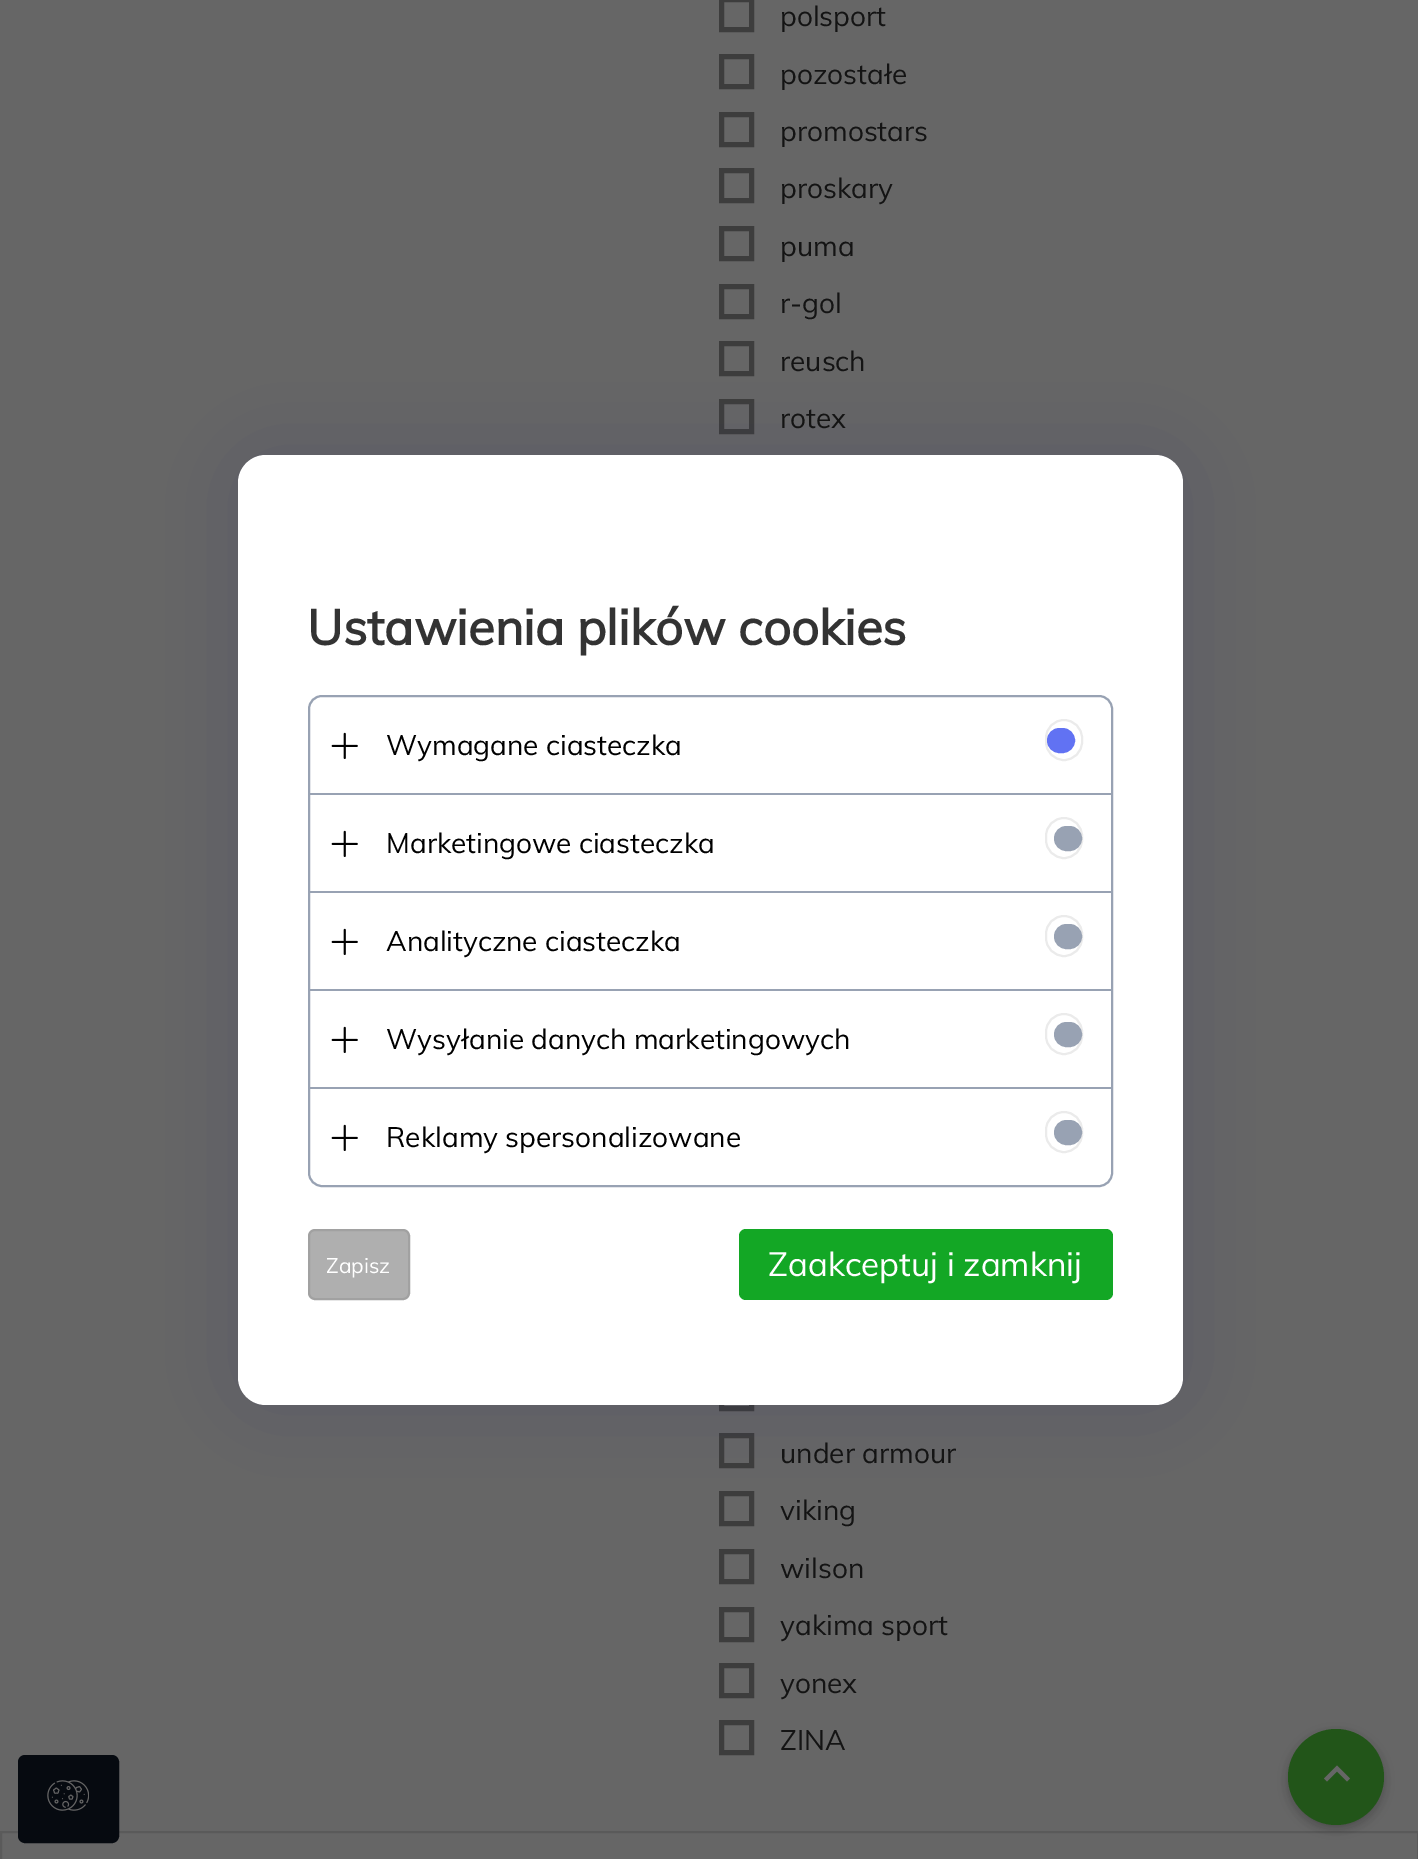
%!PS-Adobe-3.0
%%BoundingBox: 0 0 1418 1859
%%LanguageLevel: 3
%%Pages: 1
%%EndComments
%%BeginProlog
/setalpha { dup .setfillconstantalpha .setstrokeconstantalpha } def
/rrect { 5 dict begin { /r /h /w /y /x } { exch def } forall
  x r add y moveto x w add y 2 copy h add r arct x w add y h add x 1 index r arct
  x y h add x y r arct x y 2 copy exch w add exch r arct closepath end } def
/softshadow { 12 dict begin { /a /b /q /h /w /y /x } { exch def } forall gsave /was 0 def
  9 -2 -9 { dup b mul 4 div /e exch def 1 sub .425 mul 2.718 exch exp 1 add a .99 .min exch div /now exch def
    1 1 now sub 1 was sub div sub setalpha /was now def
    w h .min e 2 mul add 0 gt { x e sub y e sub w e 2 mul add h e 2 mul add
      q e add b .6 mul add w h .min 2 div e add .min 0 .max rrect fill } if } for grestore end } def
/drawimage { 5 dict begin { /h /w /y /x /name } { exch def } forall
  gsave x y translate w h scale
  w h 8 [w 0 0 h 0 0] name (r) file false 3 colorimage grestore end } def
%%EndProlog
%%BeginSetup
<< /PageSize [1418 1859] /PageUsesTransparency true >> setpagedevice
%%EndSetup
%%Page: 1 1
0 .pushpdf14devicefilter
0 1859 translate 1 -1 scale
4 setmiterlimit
0.4 setgray
0 0 1418 1859 rectfill
0.239 setgray
5 setlinewidth
721.5 -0.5 30 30 rectstroke
721.5 56.5 30 30 rectstroke
721.5 114.5 30 30 rectstroke
721.5 170.5 30 30 rectstroke
721.5 228.5 30 30 rectstroke
721.5 286.5 30 30 rectstroke
721.5 343.5 30 30 rectstroke
721.5 401.5 30 30 rectstroke
721.5 1378.5 30 30 rectstroke
721.5 1435.5 30 30 rectstroke
721.5 1493.5 30 30 rectstroke
721.5 1551.5 30 30 rectstroke
721.5 1609.5 30 30 rectstroke
721.5 1665.5 30 30 rectstroke
721.5 1722.5 30 30 rectstroke
0.353 setgray
2 setlinewidth
1 1832 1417 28 rectstroke
0.129 0.102 0.412 setrgbcolor
238 455 945 950 28 42 0.15 softshadow
1 setgray
238 455 945 950 28 rrect fill
0.596 0.635 0.702 setrgbcolor
309 696 803 490 13 rrect stroke
(images/1.raw) 331 732 27 27 drawimage
0.922 setgray
1046 720 36 40 18 rrect stroke
0.38 0.447 0.953 setrgbcolor
1048 729 26 23 11.5 rrect gsave fill grestore
stroke
0.596 0.635 0.702 setrgbcolor
310 793 801 2 rectfill
(images/1.raw) 331 830 27 27 drawimage
0.922 setgray
1046 818 36 40 18 rrect stroke
0.596 0.635 0.702 setrgbcolor
1055 827 26 23 11.5 rrect gsave fill grestore
stroke
310 891 801 2 rectfill
(images/1.raw) 331 928 27 27 drawimage
0.922 setgray
1046 916 36 40 18 rrect stroke
0.596 0.635 0.702 setrgbcolor
1055 925 26 23 11.5 rrect gsave fill grestore
stroke
310 989 801 2 rectfill
(images/1.raw) 331 1026 27 27 drawimage
0.922 setgray
1046 1014 36 40 18 rrect stroke
0.596 0.635 0.702 setrgbcolor
1055 1023 26 23 11.5 rrect gsave fill grestore
stroke
310 1087 801 2 rectfill
(images/1.raw) 331 1124 27 27 drawimage
0.922 setgray
1046 1112 36 40 18 rrect stroke
0.596 0.635 0.702 setrgbcolor
1055 1121 26 23 11.5 rrect gsave fill grestore
stroke
0.686 setgray
309 1230 100 69 6 rrect gsave fill grestore
0.631 setgray
stroke
0.075 0.655 0.145 setrgbcolor
739 1229 374 71 7 rrect fill
0.024 0.039 0.063 setrgbcolor
19 1756 99 86 6 rrect gsave fill grestore
stroke
(images/2.raw) 47 1780 42 31 drawimage
0 setgray
1288 1733 96 96 48 9 0.12 softshadow
1288 1733 96 96 48 4.5 0.16 softshadow
0.133 0.333 0.098 setrgbcolor
newpath 1336 1777 48 0 360 arc closepath fill
0.4 setgray
newpath 1327 1781.5 moveto 1337 1771.5 lineto 1347 1781.5 lineto 1350 1778.5 lineto 1337 1765.5 lineto 1324 1778.5 lineto closepath fill
/Muli-Regular [28 0 0 -28 0 0] selectfont
0.078 setgray
780 26 moveto (polsport) show
780 84 moveto (pozostałe) show
780 141 moveto (promostars) show
780 198 moveto (proskary) show
780 256 moveto (puma) show
780 313 moveto (r-gol) show
780 371 moveto (reusch) show
780 428 moveto (rotex) show
780 1463 moveto (under armour) show
780 1520 moveto (viking) show
780 1578 moveto (wilson) show
780 1635 moveto (yakima sport) show
780 1693 moveto (yonex) show
780 1750 moveto (ZINA) show
/Muli-Bold [49 0 0 -49 0 0] selectfont
0.2 setgray
307 645 moveto (Ustawienia plików cookies) show
/Muli-Regular [28 0 0 -28 0 0] selectfont
0 setgray
386 755 moveto (Wymagane ciasteczka) show
386 853 moveto (Marketingowe ciasteczka) show
386 951 moveto (Analityczne ciasteczka) show
386 1049 moveto (Wysyłanie danych marketingowych) show
386 1147 moveto (Reklamy spersonalizowane) show
/Muli-Regular [21 0 0 -21 0 0] selectfont
1 setgray
326 1273 moveto (Zapisz) show
/Muli-Regular [33.25 0 0 -33.25 0 0] selectfont
768 1276 moveto (Zaakceptuj i zamknij) show
.poppdf14devicefilter showpage
%%EOF
